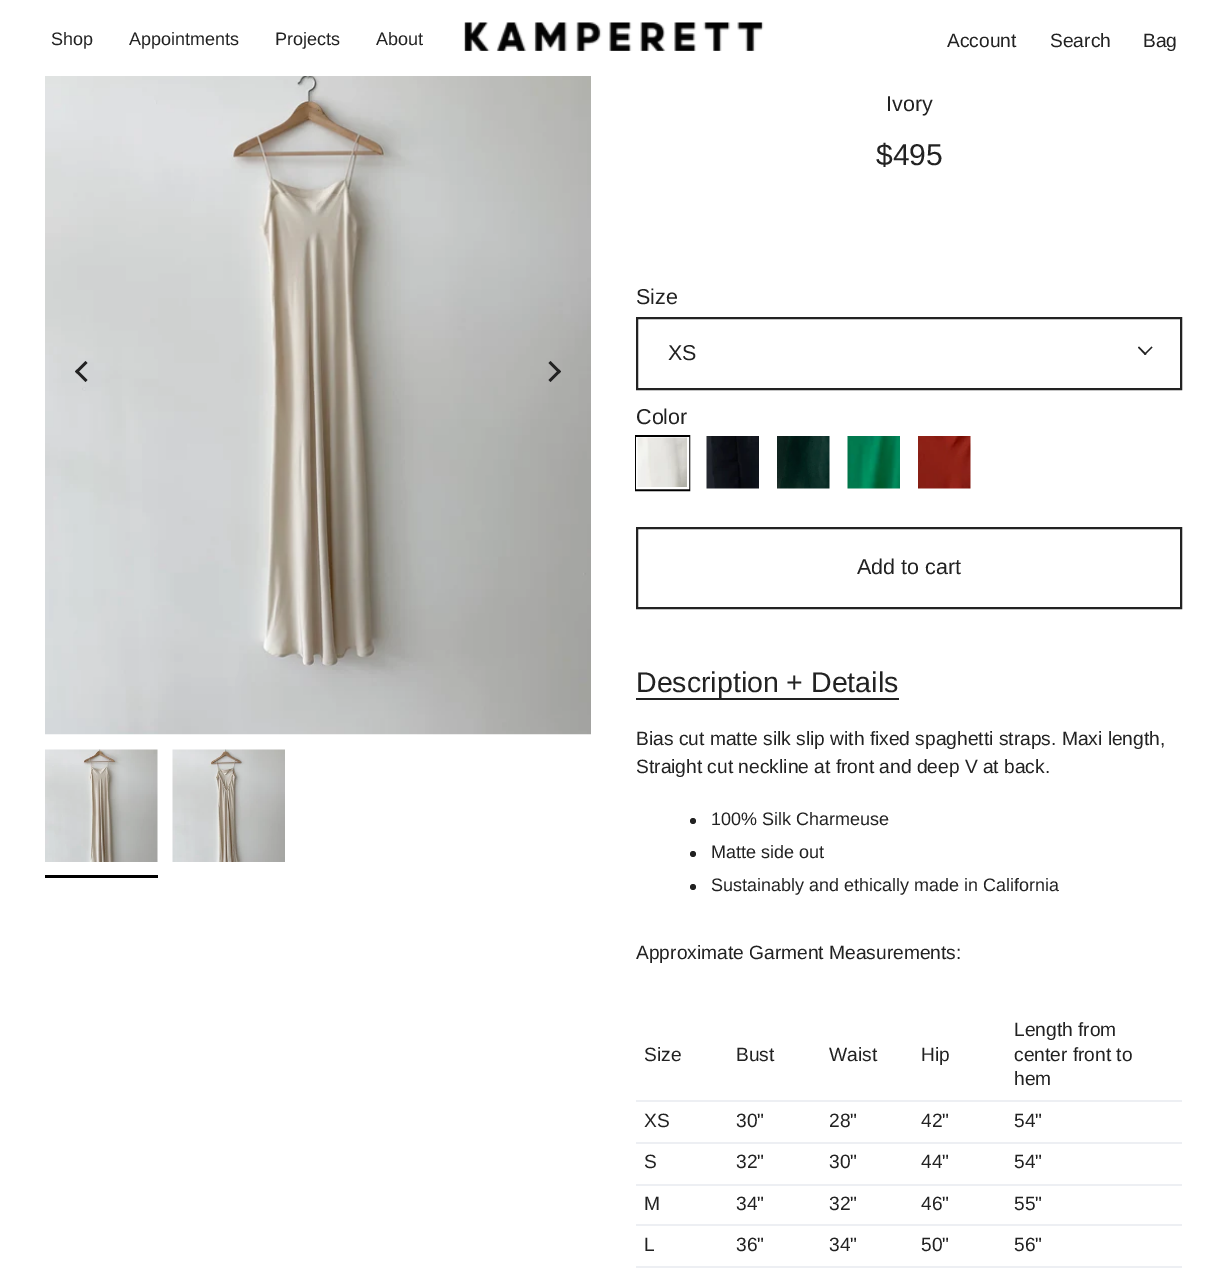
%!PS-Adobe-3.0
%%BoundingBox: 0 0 1226 1280
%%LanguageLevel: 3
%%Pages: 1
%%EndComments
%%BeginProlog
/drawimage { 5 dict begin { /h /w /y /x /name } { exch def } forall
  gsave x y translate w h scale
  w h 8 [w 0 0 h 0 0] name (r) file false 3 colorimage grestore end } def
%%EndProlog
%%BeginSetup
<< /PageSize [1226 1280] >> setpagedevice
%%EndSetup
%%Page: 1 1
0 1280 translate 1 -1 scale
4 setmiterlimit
1 setgray
0 0 1226 1280 rectfill
(images/1.raw) 464 22 300 29 drawimage
(images/2.raw) 45 76 546 659 drawimage
0.133 setgray
newpath 77 369.5 moveto 87.5 380 lineto 85.5 382 lineto 75 371.5 lineto closepath fill
newpath 85.5 361 moveto 87.5 363 lineto 77 373.5 lineto 75 371.5 lineto closepath fill
newpath 559 373.5 moveto 548.5 363 lineto 550.5 361 lineto 561 371.5 lineto closepath fill
newpath 550.5 382 moveto 548.5 380 lineto 559 369.5 lineto 561 371.5 lineto closepath fill
(images/3.raw) 45 749 113 113 drawimage
0 setgray
45 875 113 3 rectfill
(images/4.raw) 172 749 113 113 drawimage
0.133 setgray
2 setlinewidth
637 318 544 71 rectstroke
newpath 1144 354 moveto 1151.5 346.5 lineto 1152.5 347.5 lineto 1145 355 lineto closepath fill
newpath 1138 347.5 moveto 1139 346.5 lineto 1146.5 354 lineto 1145 355 lineto closepath fill
0 setgray
636 436 53 54 rectstroke
1 setgray
637 438 51 50 rectstroke
(images/5.raw) 637 437 50 50 drawimage
(images/6.raw) 706 436 53 53 drawimage
(images/7.raw) 777 436 53 53 drawimage
(images/8.raw) 847 436 53 53 drawimage
(images/9.raw) 918 436 53 53 drawimage
0.133 setgray
637 528 544 80 rectstroke
636 698 263 2 rectfill
newpath 693 821 3 0 360 arc closepath fill
newpath 693 854 3 0 360 arc closepath fill
newpath 693 887 3 0 360 arc closepath fill
0.929 0.937 0.953 setrgbcolor
636 1100 546 2 rectfill
636 1142 546 2 rectfill
636 1184 546 2 rectfill
636 1224 546 2 rectfill
636 1266 546 2 rectfill
/LiberationSans-Regular [18 0 0 -18 0 0] selectfont
0.133 setgray
51 45 moveto (Shop) show
129 45 moveto (Appointments) show
275 45 moveto (Projects) show
376 45 moveto (About) show
/LiberationSans-Regular [19.2 0 0 -19.2 0 0] selectfont
947 47 moveto (Account) show
1050 47 moveto (Search) show
1143 47 moveto (Bag) show
/LiberationSans-Regular [21.5 0 0 -21.5 0 0] selectfont
886 111 moveto (Ivory) show
/LiberationSans-Regular [30 0 0 -30 0 0] selectfont
876 165 moveto ($495) show
/LiberationSans-Regular [21.5 0 0 -21.5 0 0] selectfont
636 304 moveto (Size) show
668 360 moveto (XS) show
636 424 moveto (Color) show
857 574 moveto (Add to cart) show
/LiberationSans-Regular [28.5 0 0 -28.5 0 0] selectfont
636 692 moveto (Description + Details) show
/LiberationSans-Regular [19.2 0 0 -19.2 0 0] selectfont
636 745 moveto (Bias cut matte silk slip with fixed spaghetti straps. Maxi length,) show
636 773 moveto (Straight cut neckline at front and deep V at back.) show
/LiberationSans-Regular [18 0 0 -18 0 0] selectfont
711 825 moveto (100% Silk Charmeuse) show
711 858 moveto (Matte side out) show
711 891 moveto (Sustainably and ethically made in California) show
/LiberationSans-Regular [19.2 0 0 -19.2 0 0] selectfont
636 959 moveto (Approximate Garment Measurements:) show
644 1061 moveto (Size) show
736 1061 moveto (Bust) show
829 1061 moveto (Waist) show
921 1061 moveto (Hip) show
1014 1036 moveto (Length from) show
1014 1061 moveto (center front to) show
1014 1085 moveto (hem) show
644 1127 moveto (XS) show
736 1127 moveto (30") show
829 1127 moveto (28") show
921 1127 moveto (42") show
1014 1127 moveto (54") show
644 1168 moveto (S) show
736 1168 moveto (32") show
829 1168 moveto (30") show
921 1168 moveto (44") show
1014 1168 moveto (54") show
644 1210 moveto (M) show
736 1210 moveto (34") show
829 1210 moveto (32") show
921 1210 moveto (46") show
1014 1210 moveto (55") show
644 1251 moveto (L) show
736 1251 moveto (36") show
829 1251 moveto (34") show
921 1251 moveto (50") show
1014 1251 moveto (56") show
showpage
%%EOF
